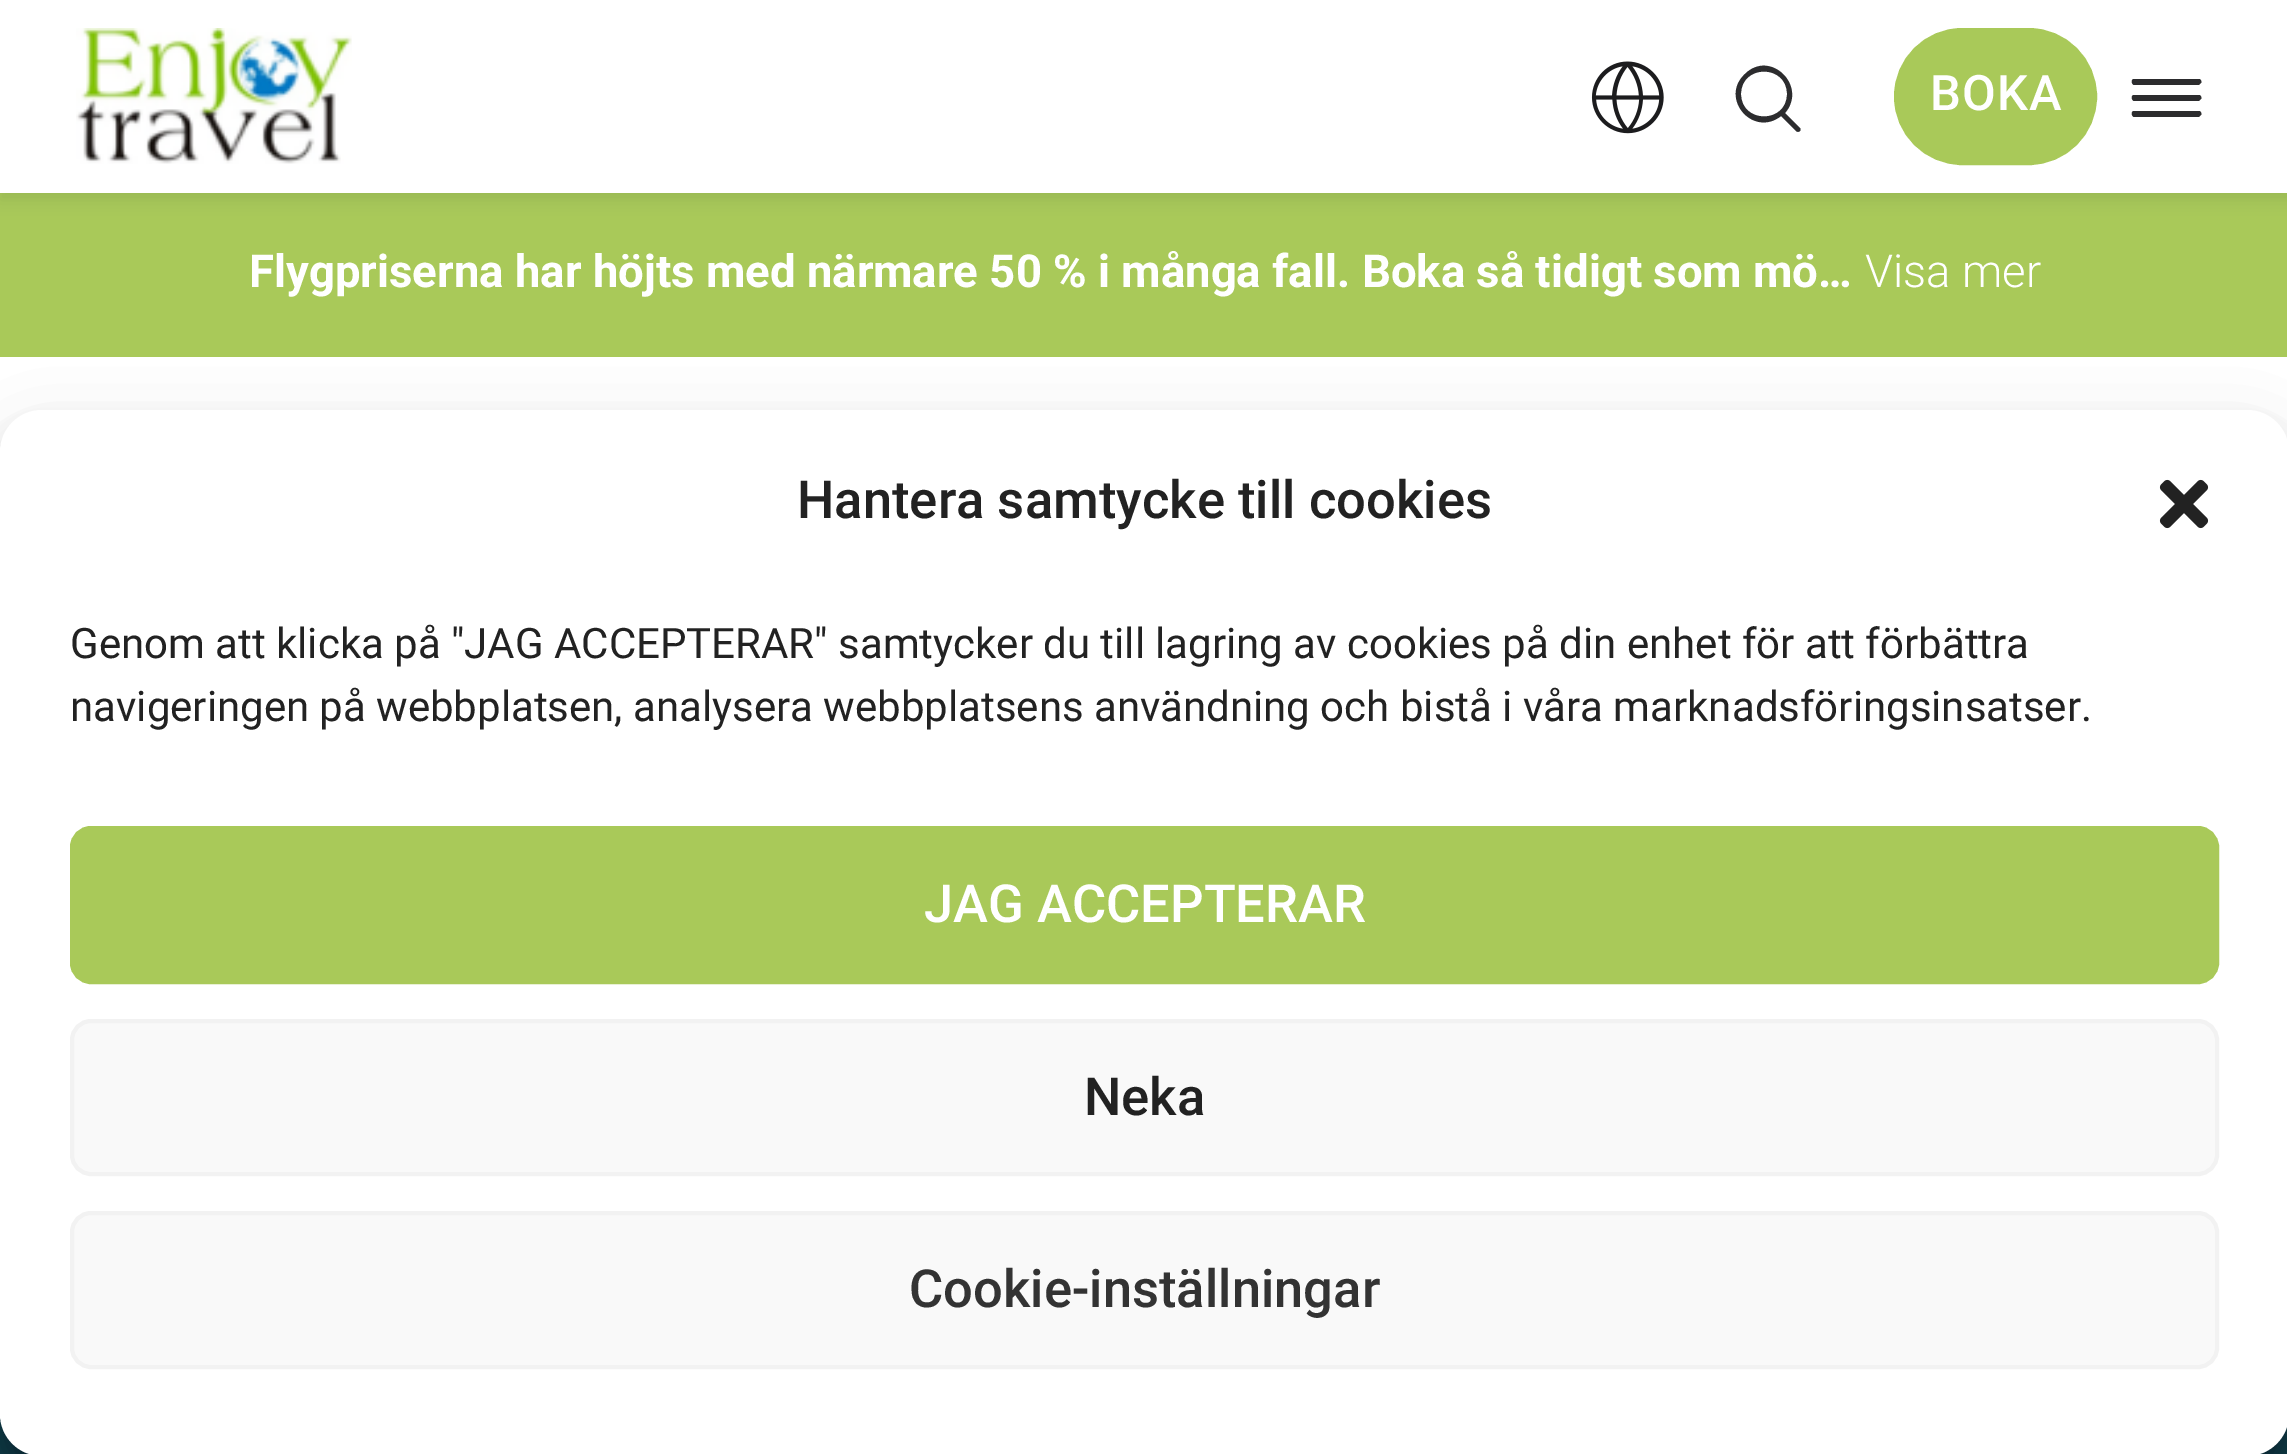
%!PS-Adobe-3.0
%%BoundingBox: 0 0 2287 1454
%%LanguageLevel: 3
%%Pages: 1
%%EndComments
%%BeginProlog
/setalpha { dup .setfillconstantalpha .setstrokeconstantalpha } def
/rrect { 5 dict begin { /r /h /w /y /x } { exch def } forall
  x r add y moveto x w add y 2 copy h add r arct x w add y h add x 1 index r arct
  x y h add x y r arct x y 2 copy exch w add exch r arct closepath end } def
/softshadow { 12 dict begin { /a /b /q /h /w /y /x } { exch def } forall gsave /was 0 def
  9 -2 -9 { dup b mul 4 div /e exch def 1 sub .425 mul 2.718 exch exp 1 add a .99 .min exch div /now exch def
    1 1 now sub 1 was sub div sub setalpha /was now def
    w h .min e 2 mul add 0 gt { x e sub y e sub w e 2 mul add h e 2 mul add
      q e add b .6 mul add w h .min 2 div e add .min 0 .max rrect fill } if } for grestore end } def
/drawimage { 5 dict begin { /h /w /y /x /name } { exch def } forall
  gsave x y translate w h scale
  w h 8 [w 0 0 h 0 0] name (r) file false 3 colorimage grestore end } def
%%EndProlog
%%BeginSetup
<< /PageSize [2287 1454] /PageUsesTransparency true >> setpagedevice
%%EndSetup
%%Page: 1 1
0 .pushpdf14devicefilter
0 1454 translate 1 -1 scale
4 setmiterlimit
1 setgray
0 0 2287 1454 rectfill
0.663 0.788 0.349 setrgbcolor
0 193 2287 164 rectfill
0 setgray
0 7 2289 193 0 7 0.07 softshadow
1 setgray
0 0 2287 193 rectfill
(images/1.raw) 76 28 276 136 drawimage
(images/2.raw) 1591 61 73 73 drawimage
0.173 0.173 0.18 setrgbcolor
newpath 1781 116 moveto 1753 138 1719 98 1745 74 curveto 1770 49 1808 86 1785 113 curveto 1800 128 lineto 1802 131 1798 133 1796 131 curveto closepath 1787 94 moveto 1787 124 1741 124 1741 94 curveto 1741 64 1787 64 1787 94 curveto eofill
0.663 0.788 0.349 setrgbcolor
1897.5 31.5 196 130 65 rrect gsave fill grestore
7 setlinewidth
stroke
0.173 0.173 0.18 setrgbcolor
newpath 2134 79 moveto 2131 79 2131 84 2134 85 curveto 2199 85 lineto 2201 83 lineto 2202 82 2201 79 2199 79 curveto closepath 2134 95 moveto 2131 95 2131 100 2134 101 curveto 2199 101 lineto 2201 99 lineto 2202 98 2201 95 2199 95 curveto closepath 2134 111 moveto 2131 111 2131 116 2134 117 curveto 2199 117 lineto 2201 115 lineto 2202 114 2201 111 2199 111 curveto closepath fill
0.059 0.235 0.302 setrgbcolor
0 1414 2287 40 rectfill
0 setgray
0 431 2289 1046 42 10.5 0.23 softshadow
0 445 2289 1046 42 35 0.19 softshadow
1 setgray
0 410 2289 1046 42 rrect fill
(images/3.raw) 2159 479 50 50 drawimage
0.663 0.788 0.349 setrgbcolor
72 828 2145 154 19 rrect gsave fill grestore
4 setlinewidth
stroke
0.976 setgray
72 1021 2145 153 19 rrect gsave fill grestore
0.949 setgray
stroke
0.976 setgray
72 1213 2145 154 19 rrect gsave fill grestore
0.949 setgray
stroke
/Roboto-Medium [49 0 0 -49 0 0] selectfont
1 setgray
1930 110 moveto 1 0 (BOKA) ashow
/Roboto-Bold [45.5 0 0 -45.5 0 0] selectfont
249 287 moveto (Flygpriserna har höjts med närmare 50 % i många fall. Boka så tidigt som mö…) show
/Roboto-Light [45.5 0 0 -45.5 0 0] selectfont
1865 287 moveto (Visa mer) show
/Roboto-Medium [52.5 0 0 -52.5 0 0] selectfont
0.133 setgray
797 518 moveto (Hantera samtycke till cookies) show
/Roboto-Regular [42 0 0 -42 0 0] selectfont
70 658 moveto (Genom att klicka på "JAG ACCEPTERAR" samtycker du till lagring av cookies på din enhet för att förbättra) show
70 721 moveto (navigeringen på webbplatsen, analysera webbplatsens användning och bistå i våra marknadsföringsinsatser.) show
/Roboto-Medium [52.5 0 0 -52.5 0 0] selectfont
1 setgray
924 922 moveto (JAG ACCEPTERAR) show
0.133 setgray
1084 1115 moveto (Neka) show
0.2 setgray
909 1307 moveto (Cookie-inställningar) show
.poppdf14devicefilter showpage
%%EOF
